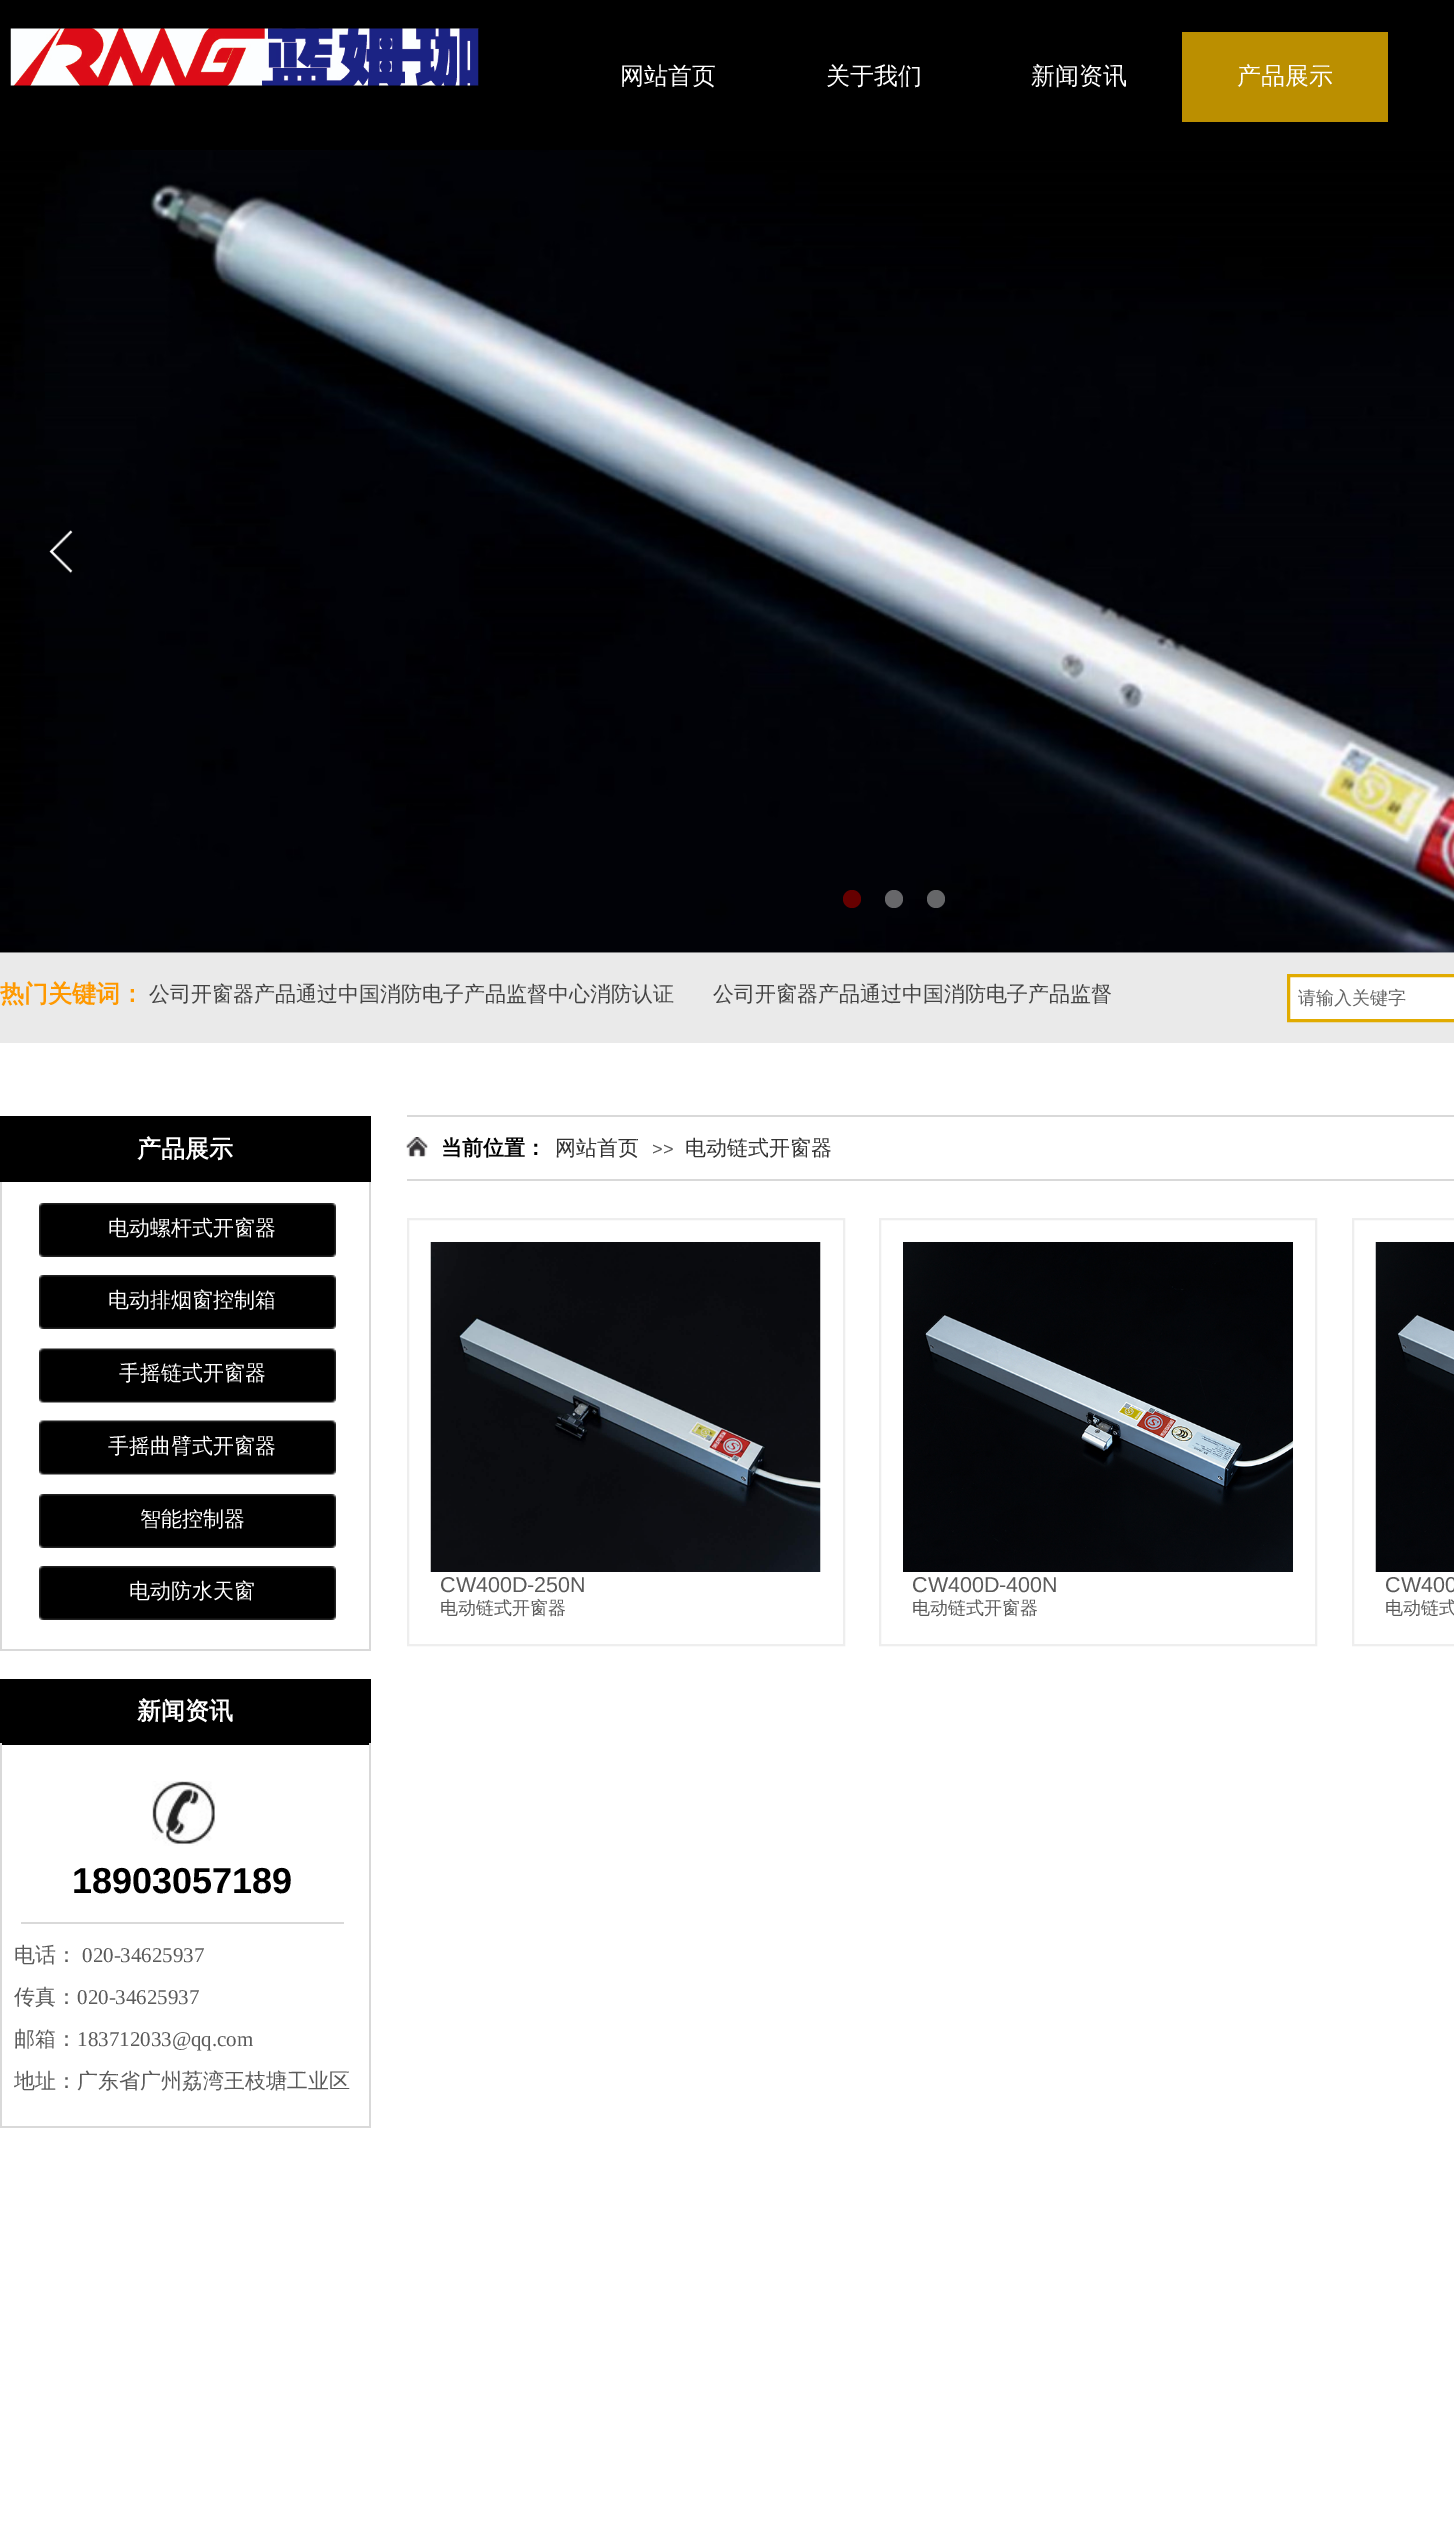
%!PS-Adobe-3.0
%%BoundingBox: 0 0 1454 2542
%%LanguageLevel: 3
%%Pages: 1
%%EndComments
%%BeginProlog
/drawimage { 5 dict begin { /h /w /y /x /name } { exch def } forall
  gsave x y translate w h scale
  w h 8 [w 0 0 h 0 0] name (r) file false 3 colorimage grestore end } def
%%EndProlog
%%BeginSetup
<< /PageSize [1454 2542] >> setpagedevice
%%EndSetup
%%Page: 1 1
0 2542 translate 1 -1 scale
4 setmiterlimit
1 setgray
0 0 1454 2542 rectfill
0 setgray
0 0 1454 150 rectfill
(images/1.raw) 10 28 469 58 drawimage
0.733 0.561 0 setrgbcolor
1182 32 206 90 rectfill
(images/2.raw) 0 150 1454 803 drawimage
(images/3.raw) 49 530 24 44 drawimage
0.4 0 0 setrgbcolor
newpath 852 899 9 0 360 arc closepath fill
0.404 0.404 0.416 setrgbcolor
newpath 894 899 9 0 360 arc closepath fill
0.4 0.404 0.412 setrgbcolor
newpath 936 899 9 0 360 arc closepath fill
0.918 setgray
0 953 1454 90 rectfill
1 setgray
newpath 1288.5 975.5 moveto 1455.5 975.5 lineto 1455.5 1020.5 lineto 1288.5 1020.5 lineto closepath gsave fill grestore
0.882 0.671 0 setrgbcolor
3 setlinewidth
stroke
0 setgray
0 1116 371 66 rectfill
0.851 setgray
407 1115 1047 2 rectfill
407 1179 1047 2 rectfill
(images/4.raw) 406 1137 22 20 drawimage
369 1182 2 468 rectfill
0 1649 371 2 rectfill
0 1182 2 468 rectfill
(images/5.raw) 39 1203 297 54 drawimage
(images/5.raw) 39 1275 297 54 drawimage
(images/6.raw) 39 1348 297 55 drawimage
(images/6.raw) 39 1420 297 55 drawimage
(images/5.raw) 39 1494 297 54 drawimage
(images/5.raw) 39 1566 297 54 drawimage
0.933 setgray
2 setlinewidth
408 1219 436 426 rectstroke
(images/7.raw) 430 1242 391 330 drawimage
880 1219 436 426 rectstroke
(images/8.raw) 903 1242 390 330 drawimage
1353 1219 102 426 rectstroke
(images/9.raw) 1375 1242 79 330 drawimage
0 setgray
0 1679 371 66 rectfill
0.851 setgray
369 1743 2 384 rectfill
0 2126 371 2 rectfill
0 1743 2 384 rectfill
(images/10.raw) 152 1781 64 65 drawimage
21 1922 323 2 rectfill
/WenQuanYiZenHei-Medium [24 0 0 -24 0 0] selectfont
1 setgray
620 84 moveto (网站首页) show
826 84 moveto (关于我们) show
1031 84 moveto (新闻资讯) show
1237 84 moveto (产品展示) show
/WenQuanYiZenHei-Bold [24 0 0 -24 0 0] selectfont
1 0.6 0 setrgbcolor
0 1002 moveto (热门关键词：) show
/WenQuanYiZenHei-Medium [21 0 0 -21 0 0] selectfont
0.263 setgray
149 1001 moveto (公司开窗器产品通过中国消防电子产品监督中心消防认证) show
713 1001 moveto (公司开窗器产品通过中国消防电子产品监督) show
/WenQuanYiZenHei-Medium [18 0 0 -18 0 0] selectfont
0.4 setgray
1298 1004 moveto (请输入关键字) show
/WenQuanYiZenHei-Bold [24 0 0 -24 0 0] selectfont
1 setgray
137 1157 moveto (产品展示) show
/WenQuanYiZenHei-Bold [21 0 0 -21 0 0] selectfont
0 setgray
441 1155 moveto (当前位置：) show
/WenQuanYiZenHei-Medium [21 0 0 -21 0 0] selectfont
0.2 setgray
555 1155 moveto (网站首页) show
/LiberationSans-Regular [18 0 0 -18 0 0] selectfont
0.353 setgray
652 1155 moveto (>>) show
/WenQuanYiZenHei-Medium [21 0 0 -21 0 0] selectfont
0.2 setgray
685 1155 moveto (电动链式开窗器) show
1 setgray
108 1235 moveto (电动螺杆式开窗器) show
108 1307 moveto (电动排烟窗控制箱) show
119 1380 moveto (手摇链式开窗器) show
108 1453 moveto (手摇曲臂式开窗器) show
140 1526 moveto (智能控制器) show
129 1598 moveto (电动防水天窗) show
/LiberationSans-Regular [21.5 0 0 -21.5 0 0] selectfont
0.353 setgray
440 1592 moveto (CW400D-250N) show
/WenQuanYiZenHei-Medium [18 0 0 -18 0 0] selectfont
440 1614 moveto (电动链式开窗器) show
/LiberationSans-Regular [21.5 0 0 -21.5 0 0] selectfont
912 1592 moveto (CW400D-400N) show
/WenQuanYiZenHei-Medium [18 0 0 -18 0 0] selectfont
912 1614 moveto (电动链式开窗器) show
/LiberationSans-Regular [21.5 0 0 -21.5 0 0] selectfont
1385 1592 moveto (CW400) show
/WenQuanYiZenHei-Medium [18 0 0 -18 0 0] selectfont
1385 1614 moveto (电动链式) show
/WenQuanYiZenHei-Bold [24 0 0 -24 0 0] selectfont
1 setgray
137 1719 moveto (新闻资讯) show
/LiberationSans-Bold [36 0 0 -36 0 0] selectfont
0 setgray
72 1893 moveto (18903057189) show
/WenQuanYiZenHei-Medium [21 0 0 -21 0 0] selectfont
0.353 setgray
14 1962 moveto (电话：) show
/LiberationSerif-Regular [21 0 0 -21 0 0] selectfont
82 1962 moveto (020-34625937) show
/WenQuanYiZenHei-Medium [21 0 0 -21 0 0] selectfont
14 2004 moveto (传真：) show
/LiberationSerif-Regular [21 0 0 -21 0 0] selectfont
77 2004 moveto (020-34625937) show
/WenQuanYiZenHei-Medium [21 0 0 -21 0 0] selectfont
14 2046 moveto (邮箱：) show
/LiberationSerif-Regular [21 0 0 -21 0 0] selectfont
77 2046 moveto (183712033@qq.com) show
gsave
14 1935 355 180 rectclip
/WenQuanYiZenHei-Medium [21 0 0 -21 0 0] selectfont
14 2088 moveto (地址：广东省广州荔湾王枝塘工业区) show
grestore
showpage
%%EOF
